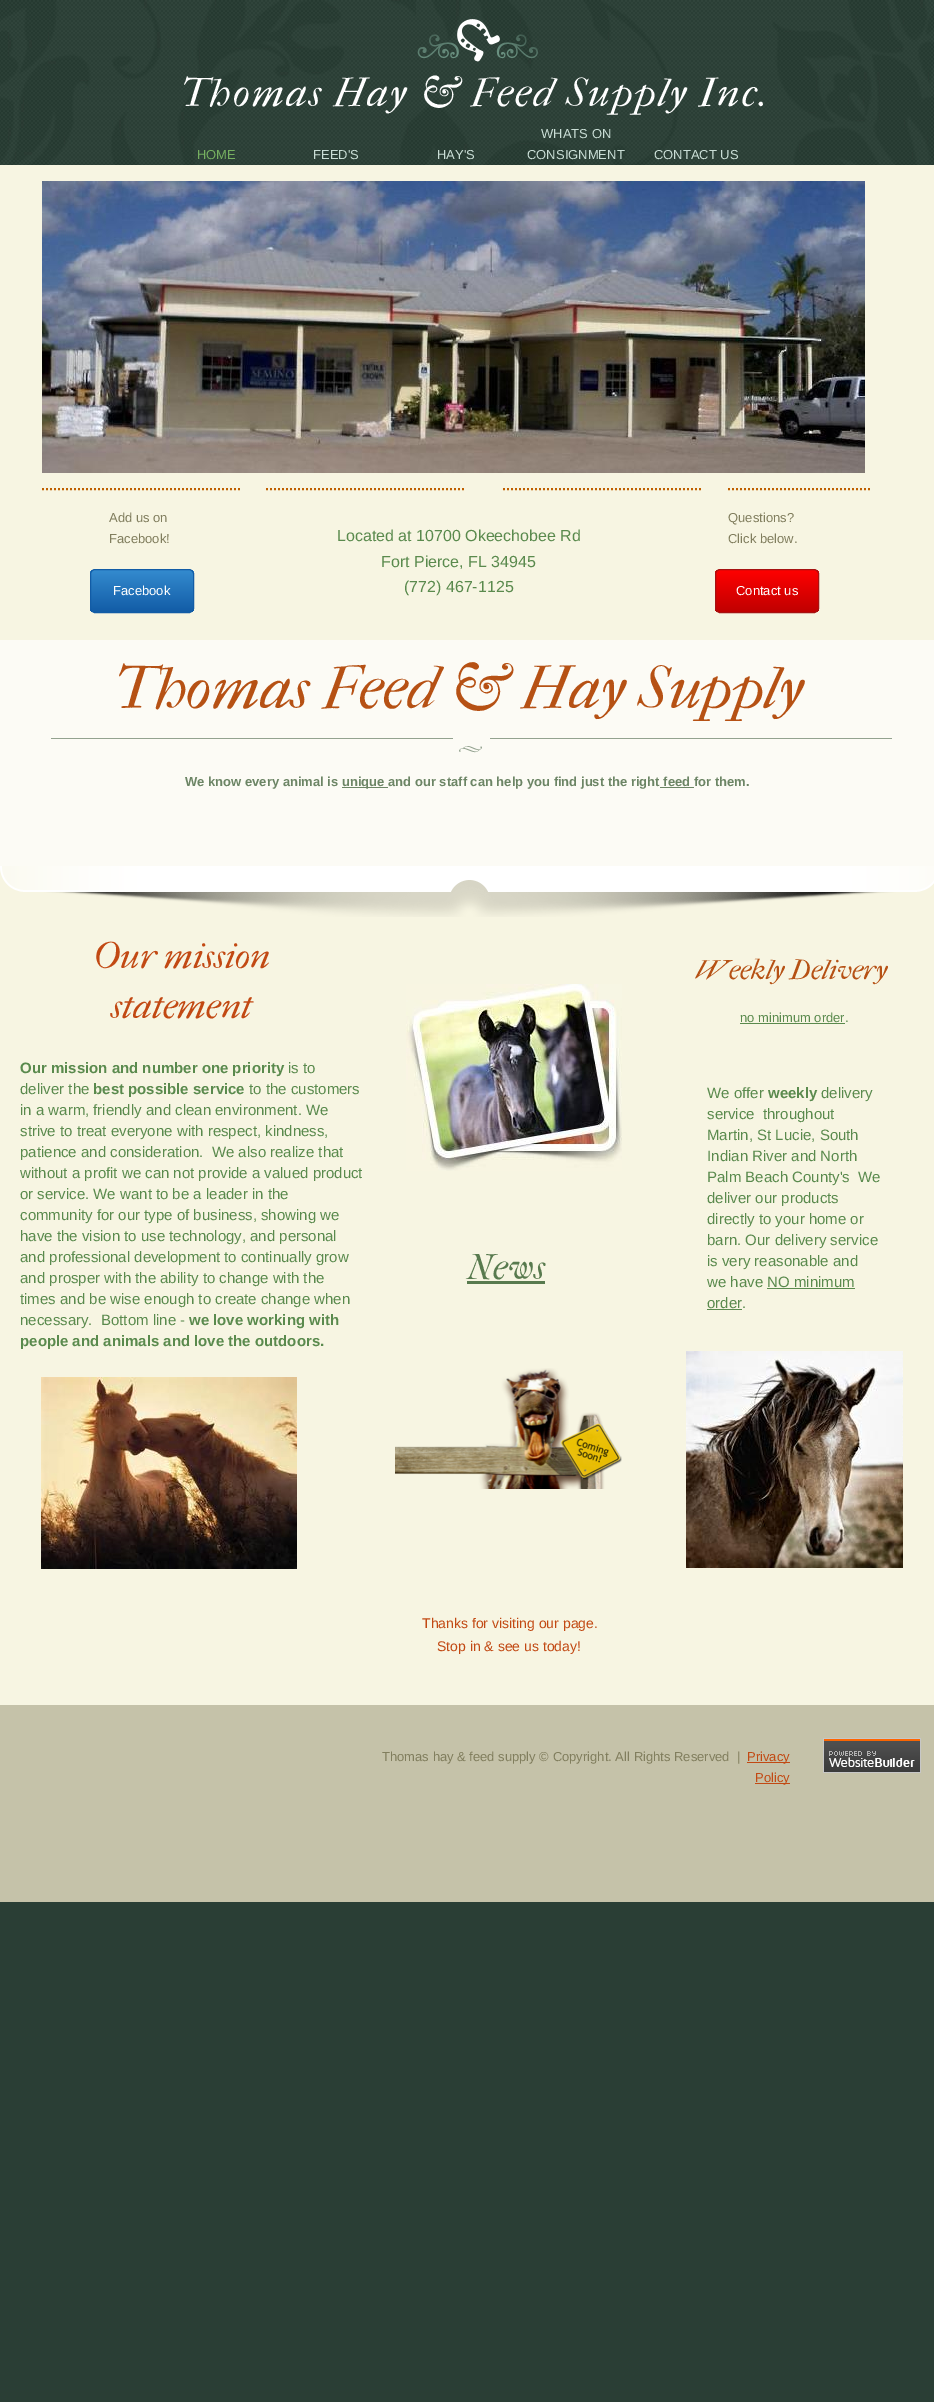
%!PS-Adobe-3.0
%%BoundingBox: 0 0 934 2402
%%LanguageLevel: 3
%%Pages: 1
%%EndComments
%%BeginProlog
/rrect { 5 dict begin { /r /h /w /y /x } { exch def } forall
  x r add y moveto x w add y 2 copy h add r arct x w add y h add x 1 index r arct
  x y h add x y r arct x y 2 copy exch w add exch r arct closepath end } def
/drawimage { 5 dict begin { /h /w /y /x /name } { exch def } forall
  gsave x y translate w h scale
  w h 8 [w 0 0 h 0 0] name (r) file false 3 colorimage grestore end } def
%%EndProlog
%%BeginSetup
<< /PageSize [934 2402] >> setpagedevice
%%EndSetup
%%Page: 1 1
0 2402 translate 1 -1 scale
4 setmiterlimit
0.165 0.243 0.208 setrgbcolor
0 0 934 2402 rectfill
(images/1.raw) 0 0 934 165 drawimage
0.969 0.961 0.886 setrgbcolor
0 165 934 1540 rectfill
(images/2.raw) 417 19 121 43 drawimage
(images/3.raw) 42 181 823 292 drawimage
0.749 0.373 0 setrgbcolor
2 setlinewidth
[2 2] 0 setdash
newpath 42 489 moveto 242 489 lineto stroke
newpath 266 489 moveto 466 489 lineto stroke
newpath 503 489 moveto 703 489 lineto stroke
newpath 728 489 moveto 872 489 lineto stroke
gsave
90 569 104 44 5 rrect clip newpath
gsave newpath 90 570 moveto 194 570 lineto 194 612 lineto 90 612 lineto closepath clip newpath
<< /ShadingType 2 /ColorSpace /DeviceRGB /Coords [142 570 142 612] /Extend [true true] /Function << /FunctionType 2 /Domain [0 1] /C0 [0.204 0.545 0.812] /C1 [0.071 0.361 0.651] /N 1 >> >> shfill grestore
grestore
0.071 0.361 0.651 setrgbcolor
1 setlinewidth
[] 0 setdash
90.5 569.5 103 43 4.5 rrect stroke
gsave
715 569 104 44 5 rrect clip newpath
gsave newpath 715 570 moveto 819 570 lineto 819 612 lineto 715 612 lineto closepath clip newpath
<< /ShadingType 2 /ColorSpace /DeviceRGB /Coords [767 570 767 612] /Extend [true true] /Function << /FunctionType 2 /Domain [0 1] /C0 [1 0 0] /C1 [0.753 0 0] /N 1 >> >> shfill grestore
grestore
0.651 0.071 0.071 setrgbcolor
715.5 569.5 103 43 4.5 rrect stroke
0.988 0.984 0.961 setrgbcolor
0 640 934 226 rectfill
0.576 0.635 0.561 setrgbcolor
51 738 402 1 rectfill
490 738 402 1 rectfill
(images/4.raw) 459 746 23 7 drawimage
0.424 0.522 0.396 setrgbcolor
342 787 46 1 rectfill
660 787 34 1 rectfill
(images/5.raw) 0 866 934 51 drawimage
(images/6.raw) 406 984 216 187 drawimage
0.353 0.541 0.302 setrgbcolor
740 1023 105 1 rectfill
0.345 0.478 0.306 setrgbcolor
467 1281 78 3 rectfill
0.353 0.541 0.302 setrgbcolor
767 1288 88 1 rectfill
707 1309 35 1 rectfill
(images/7.raw) 41 1377 256 192 drawimage
(images/8.raw) 395 1368 227 121 drawimage
(images/9.raw) 686 1351 217 217 drawimage
0.773 0.761 0.663 setrgbcolor
0 1705 934 197 rectfill
0.761 0.286 0.075 setrgbcolor
747 1762 43 1 rectfill
755 1783 35 1 rectfill
(images/10.raw) 823 1738 98 35 drawimage
/IMFELLFrenchCanon-Italic [40 0 0 -40 0 0] selectfont
1 setgray
180 106 moveto 2 0 (Thomas Hay & Feed Supply Inc.) ashow
/LiberationSans-Regular [13 0 0 -13 0 0] selectfont
0.463 0.69 0.376 setrgbcolor
197 159 moveto (HOME) show
0.792 0.871 0.839 setrgbcolor
313 159 moveto (FEED'S) show
437 159 moveto (HAY'S) show
541 138 moveto (WHATS ON) show
527 159 moveto (CONSIGNMENT) show
654 159 moveto (CONTACT US) show
0.506 0.494 0.369 setrgbcolor
109 522 moveto (Add us on) show
109 543 moveto (Facebook!) show
/LiberationSans-Regular [16 0 0 -16 0 0] selectfont
0.353 0.541 0.302 setrgbcolor
337 541 moveto (Located at 10700 Okeechobee Rd) show
381 567 moveto (Fort Pierce, FL 34945) show
404 592 moveto (\(772\) 467-1125) show
/LiberationSans-Regular [13 0 0 -13 0 0] selectfont
0.506 0.494 0.369 setrgbcolor
728 522 moveto (Questions?) show
728 543 moveto (Click below.) show
1 setgray
113 595 moveto (Facebook) show
736 595 moveto (Contact us) show
/IMFELLFrenchCanon-Italic [60 0 0 -60 0 0] selectfont
0.714 0.318 0.078 setrgbcolor
113 708 moveto (Thomas Feed & Hay Supply) show
/LiberationSans-Bold [13 0 0 -13 0 0] selectfont
0.424 0.522 0.396 setrgbcolor
185 786 moveto (We know every animal is) show
342 786 moveto (unique and our staff can help you find just the right feed for them.) show
/IMFELLFrenchCanon-Italic [36 0 0 -36 0 0] selectfont
0.761 0.286 0.075 setrgbcolor
93 968 moveto (Our mission) show
111 1018 moveto (statement) show
/IMFELLFrenchCanon-Italic [28 0 0 -28 0 0] selectfont
0.714 0.318 0.078 setrgbcolor
695 979 moveto (Weekly Delivery) show
/LiberationSans-Regular [13 0 0 -13 0 0] selectfont
0.353 0.541 0.302 setrgbcolor
740 1022 moveto (no minimum order.) show
/LiberationSans-Bold [15 0 0 -15 0 0] selectfont
20 1073 moveto (Our mission and number one priority) show
/LiberationSans-Regular [15 0 0 -15 0 0] selectfont
288 1073 moveto (is to) show
20 1094 moveto (deliver the) show
/LiberationSans-Bold [15 0 0 -15 0 0] selectfont
93 1094 moveto (best possible service) show
/LiberationSans-Regular [15 0 0 -15 0 0] selectfont
249 1094 moveto (to the customers) show
20 1115 moveto (in a warm, friendly and clean environment. We) show
20 1136 moveto (strive to treat everyone with respect, kindness,) show
20 1157 moveto (patience and consideration.  We also realize that) show
20 1178 moveto (without a profit we can not provide a valued product) show
20 1199 moveto (or service. We want to be a leader in the) show
20 1220 moveto (community for our type of business, showing we) show
20 1241 moveto (have the vision to use technology, and personal) show
20 1262 moveto (and professional development to continually grow) show
20 1283 moveto (and prosper with the ability to change with the) show
20 1304 moveto (times and be wise enough to create change when) show
20 1325 moveto (necessary.  Bottom line -) show
/LiberationSans-Bold [15 0 0 -15 0 0] selectfont
189 1325 moveto (we love working with) show
20 1346 moveto (people and animals and love the outdoors.) show
/IMFELLFrenchCanon-Italic [36 0 0 -36 0 0] selectfont
0.345 0.478 0.306 setrgbcolor
467 1279 moveto (News) show
/LiberationSans-Regular [15 0 0 -15 0 0] selectfont
0.353 0.541 0.302 setrgbcolor
707 1098 moveto (We offer) show
/LiberationSans-Bold [15 0 0 -15 0 0] selectfont
768 1098 moveto (weekly) show
/LiberationSans-Regular [15 0 0 -15 0 0] selectfont
821 1098 moveto (delivery) show
707 1119 moveto (service  throughout) show
707 1140 moveto (Martin, St Lucie, South) show
707 1161 moveto (Indian River and North) show
707 1182 moveto (Palm Beach County's  We) show
707 1203 moveto (deliver our products) show
707 1224 moveto (directly to your home or) show
707 1245 moveto (barn. Our delivery service) show
707 1266 moveto (is very reasonable and) show
707 1287 moveto (we have NO minimum) show
707 1308 moveto (order.) show
/LiberationSans-Regular [14 0 0 -14 0 0] selectfont
0.761 0.286 0.075 setrgbcolor
422 1628 moveto (Thanks for visiting our page.) show
437 1651 moveto (Stop in & see us today!) show
/LiberationSans-Regular [13 0 0 -13 0 0] selectfont
0.506 0.494 0.369 setrgbcolor
382 1761 moveto (Thomas hay & feed supply © Copyright. All Rights Reserved  |) show
0.761 0.286 0.075 setrgbcolor
747 1761 moveto (Privacy) show
755 1782 moveto (Policy) show
showpage
%%EOF
